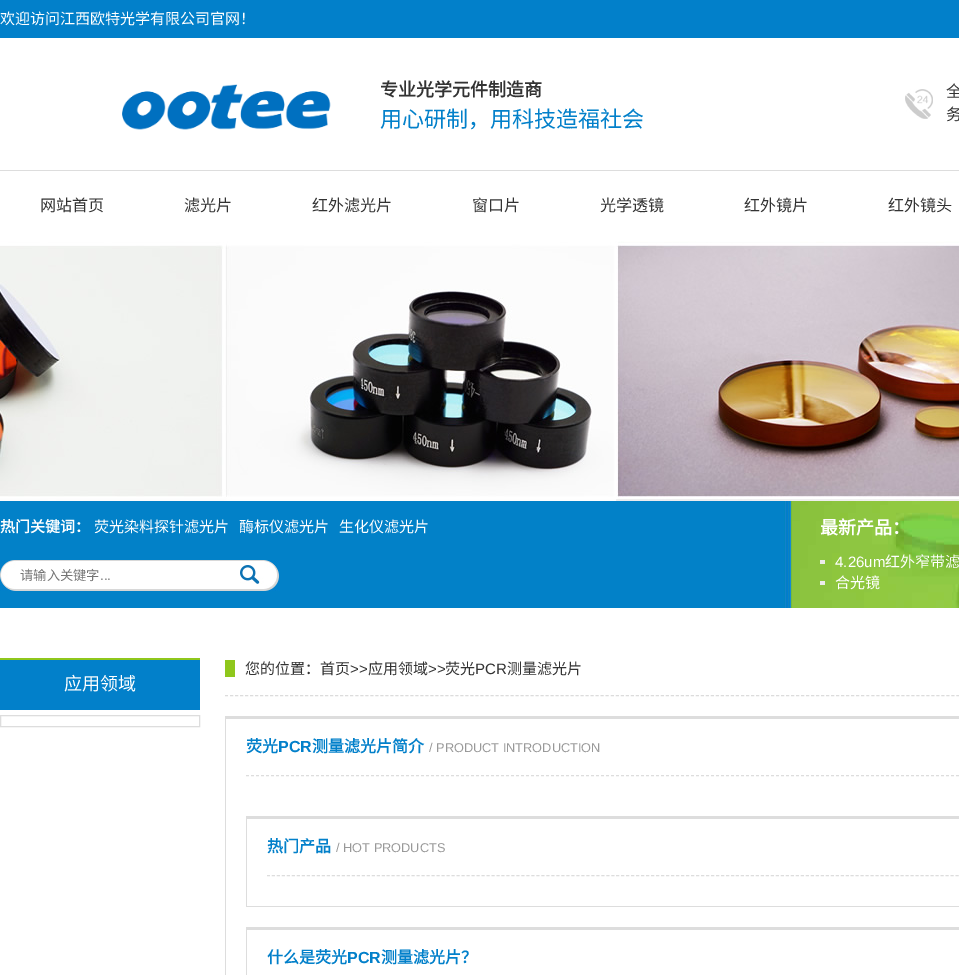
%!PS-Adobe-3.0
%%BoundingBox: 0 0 959 975
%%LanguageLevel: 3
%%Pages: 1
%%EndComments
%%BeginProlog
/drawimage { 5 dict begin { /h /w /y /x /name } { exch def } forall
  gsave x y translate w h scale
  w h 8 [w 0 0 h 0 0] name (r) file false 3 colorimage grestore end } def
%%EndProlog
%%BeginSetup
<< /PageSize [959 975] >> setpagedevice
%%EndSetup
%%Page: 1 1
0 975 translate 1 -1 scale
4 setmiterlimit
1 setgray
0 0 959 975 rectfill
0.008 0.502 0.792 setrgbcolor
0 0 959 38 rectfill
(images/1.raw) 122 84 209 46 drawimage
(images/2.raw) 905 89 28 30 drawimage
0.867 setgray
0 170 959 1 rectfill
(images/3.raw) 0 241 959 260 drawimage
(images/4.raw) 0 501 959 107 drawimage
(images/5.raw) 0 560 240 31 drawimage
(images/6.raw) 240 560 40 31 drawimage
0.929 0.925 0.925 setrgbcolor
820 560 5 4 rectfill
820 581 5 4 rectfill
0.008 0.502 0.792 setrgbcolor
0 660 200 50 rectfill
0.561 0.78 0.11 setrgbcolor
0 658 200 2 rectfill
0.867 setgray
0.5 715.5 199 11 rectstroke
0.863 setgray
[3 2.01] 0 setdash
newpath 225 695.5 moveto 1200 695.5 lineto stroke
0.561 0.78 0.11 setrgbcolor
225 660 10 17 rectfill
0.867 setgray
225 716 734 3 rectfill
225 716 1 259 rectfill
[3 2] 0 setdash
newpath 246 775.5 moveto 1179 775.5 lineto stroke
246 816 713 3 rectfill
246 906 713 1 rectfill
246 816 1 91 rectfill
[3 1.99] 0 setdash
newpath 267 875.5 moveto 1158 875.5 lineto stroke
246 927 713 3 rectfill
246 927 1 48 rectfill
/NotoSansCJKSC-Regular [15 0 0 -15 0 0] selectfont
1 setgray
0 24 moveto (欢迎访问江西欧特光学有限公司官网！) show
/NotoSansCJKSC-Bold [18 0 0 -18 0 0] selectfont
0.2 setgray
380 96 moveto (专业光学元件制造商) show
/NotoSansCJKSC-Regular [22 0 0 -22 0 0] selectfont
0.008 0.502 0.792 setrgbcolor
380 127 moveto (用心研制，用科技造福社会) show
/NotoSansCJKSC-Regular [16 0 0 -16 0 0] selectfont
0.2 setgray
946 97 moveto (全) show
946 120 moveto (务) show
40 211 moveto (网站首页) show
184 211 moveto (滤光片) show
312 211 moveto (红外滤光片) show
472 211 moveto (窗口片) show
600 211 moveto (光学透镜) show
744 211 moveto (红外镜片) show
888 211 moveto (红外镜头) show
/NotoSansCJKSC-Bold [15 0 0 -15 0 0] selectfont
1 setgray
0 532 moveto (热门关键词：) show
/NotoSansCJKSC-Regular [15 0 0 -15 0 0] selectfont
94 532 moveto (荧光染料探针滤光片) show
239 532 moveto (酶标仪滤光片) show
339 532 moveto (生化仪滤光片) show
/NotoSansCJKSC-Regular [13.25 0 0 -13.25 0 0] selectfont
0.459 setgray
20 580 moveto (请输入关键字) show
/LiberationSans-Regular [13.25 0 0 -13.25 0 0] selectfont
100 580 moveto (...) show
/NotoSansCJKSC-Bold [18 0 0 -18 0 0] selectfont
1 setgray
820 534 moveto (最新产品：) show
/LiberationSans-Regular [15 0 0 -15 0 0] selectfont
835 567 moveto (4.26um) show
/NotoSansCJKSC-Regular [15 0 0 -15 0 0] selectfont
885 567 moveto (红外窄带滤) show
835 588 moveto (合光镜) show
/NotoSansCJKSC-Regular [18 0 0 -18 0 0] selectfont
64 690 moveto (应用领域) show
/NotoSansCJKSC-Regular [15 0 0 -15 0 0] selectfont
0.2 setgray
245 674 moveto (您的位置：首页) show
/LiberationSans-Regular [15 0 0 -15 0 0] selectfont
350 674 moveto (>>) show
/NotoSansCJKSC-Regular [15 0 0 -15 0 0] selectfont
368 674 moveto (应用领域) show
/LiberationSans-Regular [15 0 0 -15 0 0] selectfont
428 674 moveto (>>) show
/NotoSansCJKSC-Regular [15 0 0 -15 0 0] selectfont
445 674 moveto (荧光) show
/LiberationSans-Regular [15 0 0 -15 0 0] selectfont
475 674 moveto (PCR) show
/NotoSansCJKSC-Regular [15 0 0 -15 0 0] selectfont
507 674 moveto (测量滤光片) show
/NotoSansCJKSC-Bold [16 0 0 -16 0 0] selectfont
0.008 0.502 0.792 setrgbcolor
246 752 moveto (荧光) show
/LiberationSans-Bold [16 0 0 -16 0 0] selectfont
278 752 moveto (PCR) show
/NotoSansCJKSC-Bold [16 0 0 -16 0 0] selectfont
312 752 moveto (测量滤光片简介) show
/LiberationSans-Regular [12.75 0 0 -12.75 0 0] selectfont
0.6 setgray
429 752 moveto (/ PRODUCT INTRODUCTION) show
/NotoSansCJKSC-Bold [16 0 0 -16 0 0] selectfont
0.008 0.502 0.792 setrgbcolor
267 852 moveto (热门产品) show
/LiberationSans-Regular [12.75 0 0 -12.75 0 0] selectfont
0.6 setgray
336 852 moveto (/ HOT PRODUCTS) show
/NotoSansCJKSC-Bold [16 0 0 -16 0 0] selectfont
0.008 0.502 0.792 setrgbcolor
267 963 moveto (什么是荧光) show
/LiberationSans-Bold [16 0 0 -16 0 0] selectfont
347 963 moveto (PCR) show
/NotoSansCJKSC-Bold [16 0 0 -16 0 0] selectfont
381 963 moveto (测量滤光片？) show
showpage
%%EOF
